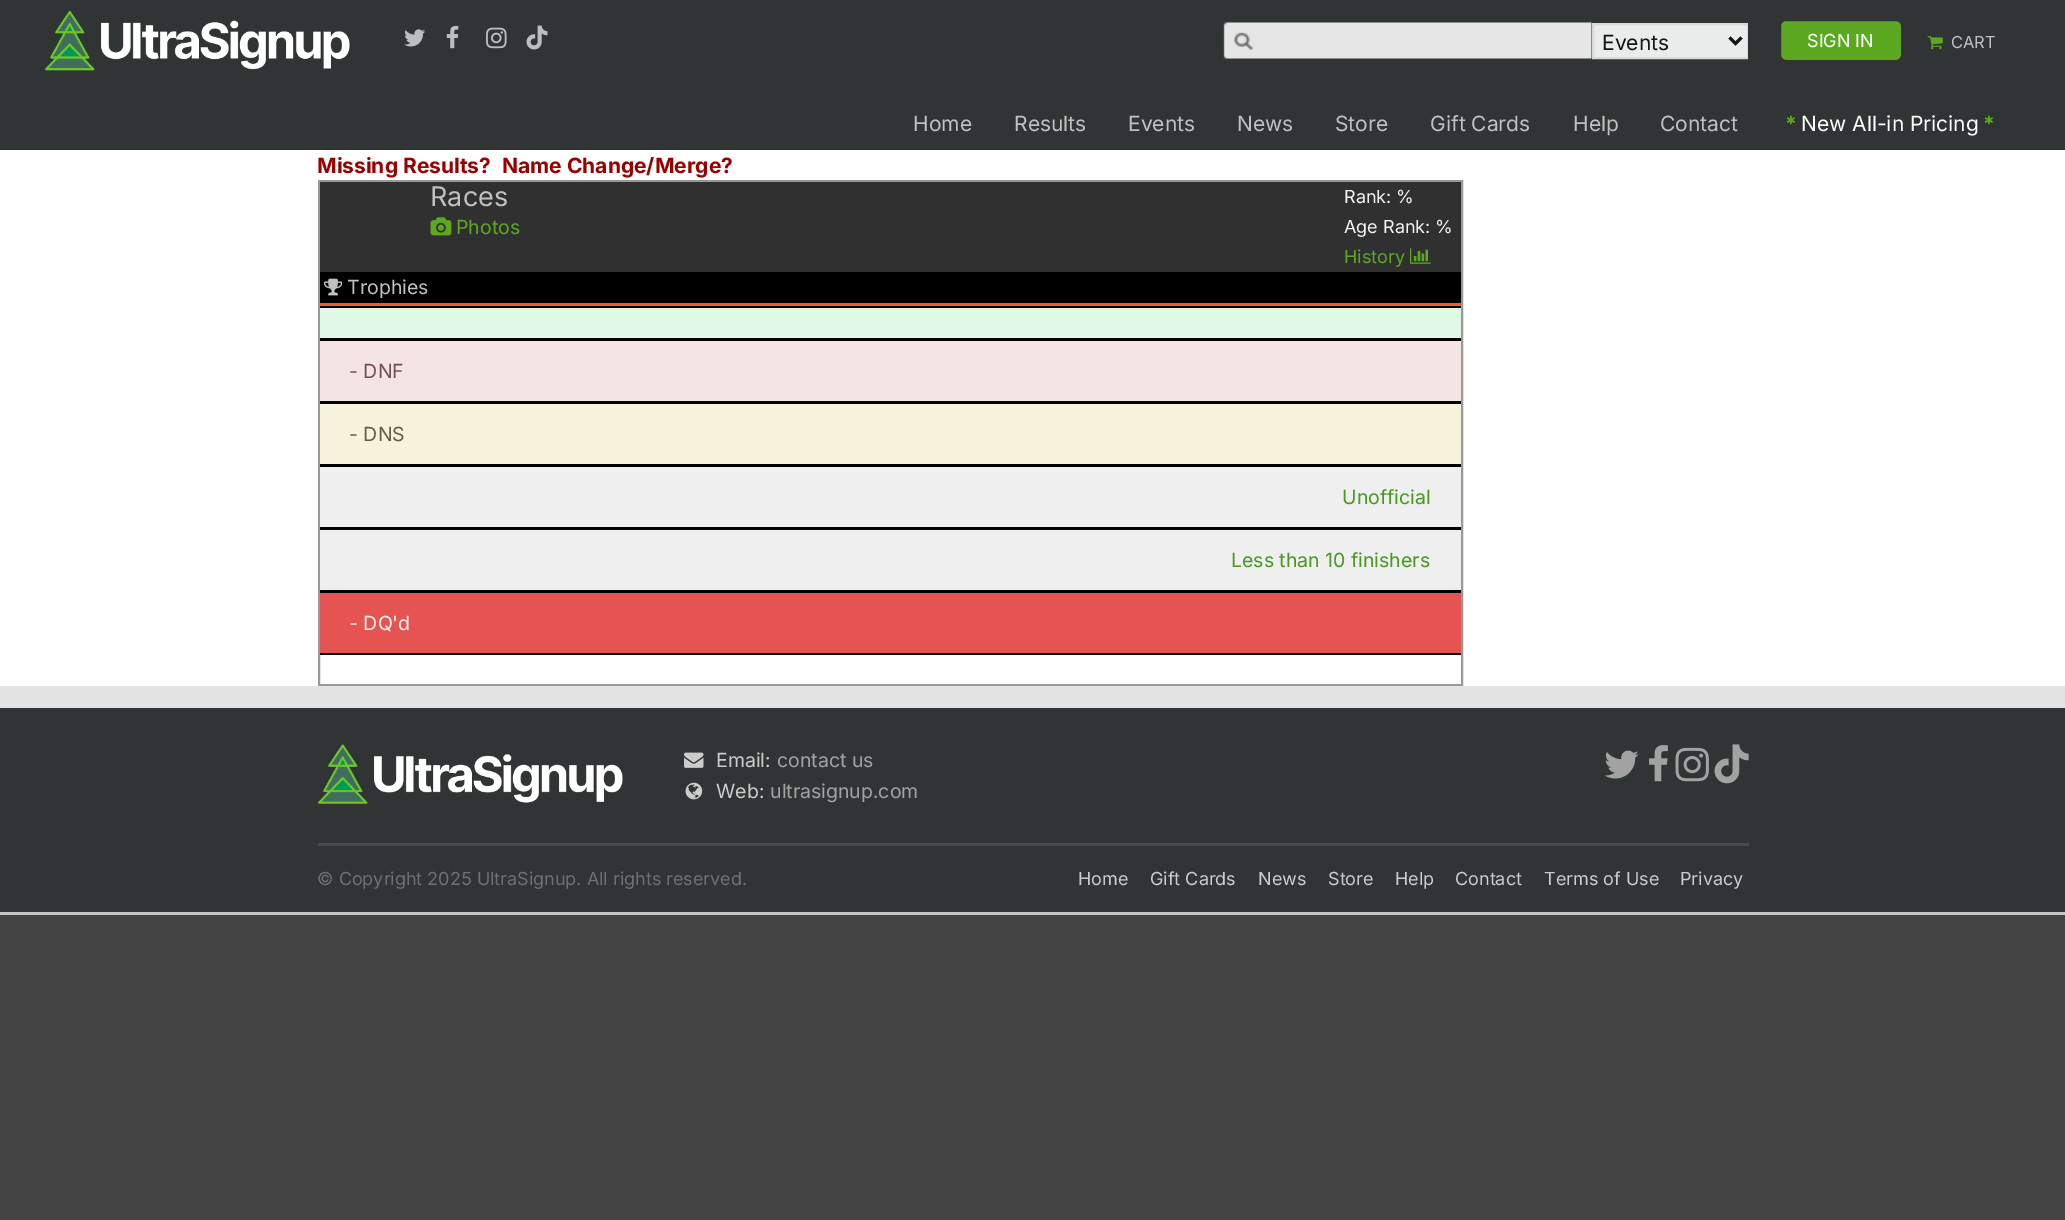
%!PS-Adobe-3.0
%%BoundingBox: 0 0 2065 1220
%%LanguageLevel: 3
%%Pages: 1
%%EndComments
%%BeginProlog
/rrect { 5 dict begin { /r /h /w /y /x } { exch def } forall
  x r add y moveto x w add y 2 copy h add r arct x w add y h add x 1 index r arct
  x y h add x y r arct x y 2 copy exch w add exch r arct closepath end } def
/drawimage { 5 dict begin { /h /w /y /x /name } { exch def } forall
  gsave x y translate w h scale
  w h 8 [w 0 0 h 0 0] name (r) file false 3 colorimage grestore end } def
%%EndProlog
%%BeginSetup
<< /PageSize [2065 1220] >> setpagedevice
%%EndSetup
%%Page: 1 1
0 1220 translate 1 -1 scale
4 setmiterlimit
0.267 setgray
0 0 2065 1220 rectfill
1 setgray
0 150 2065 536 rectfill
0.188 0.204 0.204 setrgbcolor
0 0 2065 150 rectfill
(images/1.raw) 45 10 305 61 drawimage
(images/2.raw) 404 29 21 18 drawimage
(images/3.raw) 446 25 13 24 drawimage
(images/4.raw) 486 27 21 22 drawimage
(images/5.raw) 526 25 22 25 drawimage
(images/6.raw) 1223 22 369 37 drawimage
0.918 0.922 0.922 setrgbcolor
1594 25 153 32 rectfill
gsave
1577 20 171 40 rectclip
0.847 0.847 0.843 setrgbcolor
2 setlinewidth
1593 24 155 34 rectstroke
grestore
0.075 0.086 0.086 setrgbcolor
3 setlinewidth
newpath 1729.5 37.5 moveto 1735.5 43.5 lineto 1741.5 37.5 lineto stroke
0.361 0.663 0.129 setrgbcolor
1779.5 19.5 123 42 6.5 rrect gsave fill grestore
0.2 setgray
stroke
(images/7.raw) 1927 36 16 14 drawimage
0.6 setgray
2 setlinewidth
319 181 1143 504 rectstroke
0.188 setgray
320 182 1141 90 rectfill
(images/8.raw) 430 217 22 19 drawimage
(images/9.raw) 1410 248 21 16 drawimage
0 setgray
320 272 1141 31 rectfill
0.945 0.353 0.161 setrgbcolor
320 303 1141 3 rectfill
(images/10.raw) 324 278 19 18 drawimage
0.878 0.973 0.902 setrgbcolor
320 308 1141 30 rectfill
0 setgray
320 306 1141 2 rectfill
320 338 1141 3 rectfill
0.957 0.894 0.894 setrgbcolor
320 341 1141 60 rectfill
0 setgray
320 401 1141 3 rectfill
0.969 0.949 0.863 setrgbcolor
320 404 1141 60 rectfill
0 setgray
320 464 1141 3 rectfill
0.937 setgray
320 467 1141 60 rectfill
0 setgray
320 527 1141 3 rectfill
0.937 setgray
320 530 1141 60 rectfill
0 setgray
320 590 1141 3 rectfill
0.898 0.329 0.318 setrgbcolor
320 593 1141 60 rectfill
0 setgray
320 653 1141 2 rectfill
0.89 setgray
0 686 2065 22 rectfill
0.188 0.204 0.204 setrgbcolor
0 708 2065 204 rectfill
(images/11.raw) 318 744 305 60 drawimage
(images/12.raw) 684 752 20 16 drawimage
(images/13.raw) 685 782 18 18 drawimage
(images/14.raw) 1604 750 35 29 drawimage
(images/15.raw) 1649 745 19 37 drawimage
(images/16.raw) 1675 747 34 35 drawimage
(images/17.raw) 1714 744 35 40 drawimage
0.29 setgray
318 843 1431 3 rectfill
0.773 setgray
0 912 2065 3 rectfill
/Inter-Regular [21 0 0 -21 0 0] selectfont
0.075 0.086 0.086 setrgbcolor
1602 50 moveto (Events) show
/Inter-Regular [18 0 0 -18 0 0] selectfont
1 setgray
1807 47 moveto (SIGN IN) show
/Inter-Regular [16.5 0 0 -16.5 0 0] selectfont
0.753 setgray
1951 48 moveto (CART) show
/Inter-Regular [21 0 0 -21 0 0] selectfont
913 131 moveto (Home) show
1014 131 moveto (Results) show
1128 131 moveto (Events) show
1237 131 moveto (News) show
1335 131 moveto (Store) show
1430 131 moveto (Gift Cards) show
1573 131 moveto (Help) show
1660 131 moveto (Contact) show
/Inter-Bold [21 0 0 -21 0 0] selectfont
0.361 0.663 0.129 setrgbcolor
1785 131 moveto (*) show
/Inter-Regular [21 0 0 -21 0 0] selectfont
1 setgray
1801 131 moveto (New All-in Pricing) show
/Inter-Bold [21 0 0 -21 0 0] selectfont
0.361 0.663 0.129 setrgbcolor
1983 131 moveto (*) show
0.6 0 0 setrgbcolor
317 173 moveto (Missing Results?) show
502 173 moveto (Name Change/Merge?) show
/Inter-Regular [27 0 0 -27 0 0] selectfont
0.753 setgray
430 206 moveto (Races) show
/Inter-Regular [19.5 0 0 -19.5 0 0] selectfont
0.361 0.663 0.129 setrgbcolor
456 234 moveto (Photos) show
/Inter-Regular [18 0 0 -18 0 0] selectfont
0.957 setgray
1344 203 moveto (Rank: %) show
1344 233 moveto (Age Rank: %) show
0.361 0.663 0.129 setrgbcolor
1344 263 moveto (History) show
/Inter-Regular [19.5 0 0 -19.5 0 0] selectfont
0.753 setgray
347 294 moveto (Trophies) show
0.459 0.31 0.31 setrgbcolor
349 378 moveto (- DNF) show
0.396 0.365 0.239 setrgbcolor
349 441 moveto (- DNS) show
0.278 0.6 0.122 setrgbcolor
1342 504 moveto (Unofficial) show
1231 567 moveto (Less than 10 finishers) show
0.957 setgray
349 630 moveto (- DQ'd) show
0.8 setgray
716 767 moveto (Email:) show
0.635 setgray
777 767 moveto (contact us) show
0.8 setgray
716 798 moveto (Web:) show
0.635 setgray
770 798 moveto (ultrasignup.com) show
/Inter-Regular [18 0 0 -18 0 0] selectfont
0.439 setgray
317 885 moveto (© Copyright 2025 UltraSignup. All rights reserved.) show
0.8 setgray
1078 885 moveto (Home) show
1150 885 moveto (Gift Cards) show
1258 885 moveto (News) show
1328 885 moveto (Store) show
1395 885 moveto (Help) show
1455 885 moveto (Contact) show
1544 885 moveto (Terms of Use) show
1680 885 moveto (Privacy) show
showpage
%%EOF
